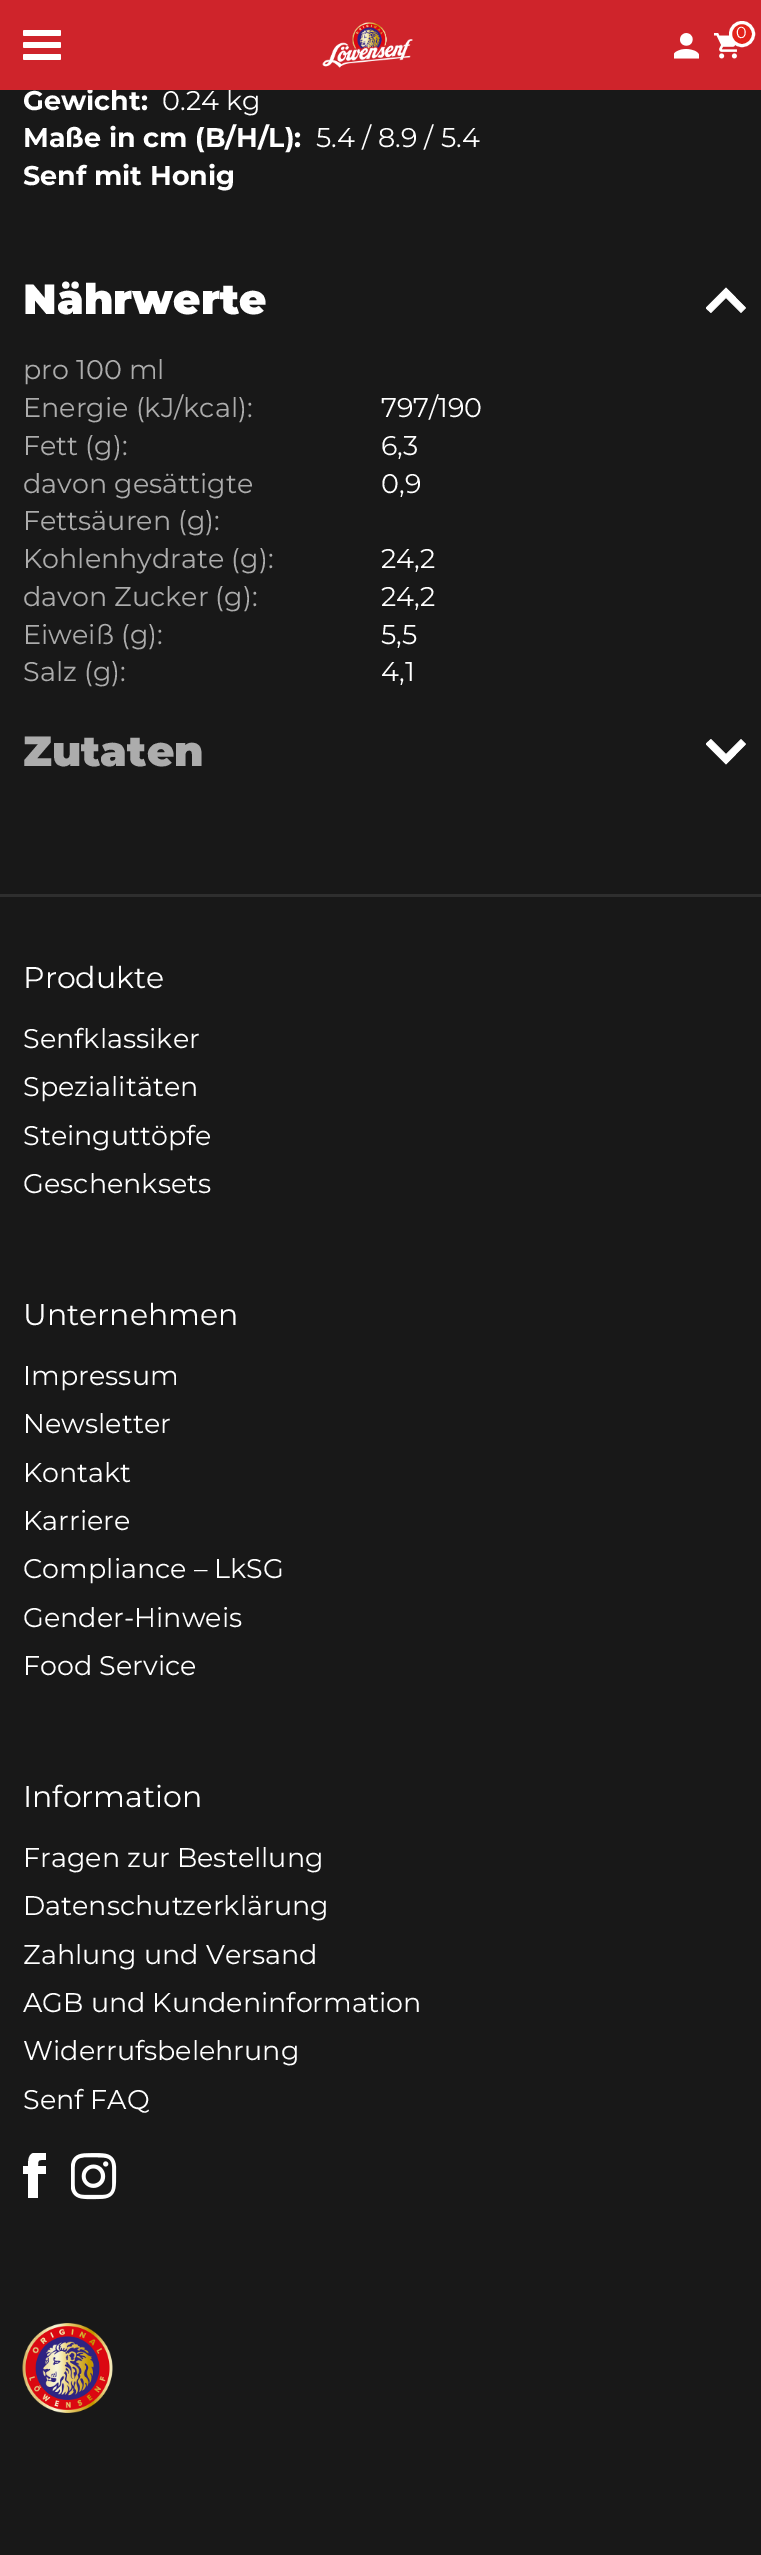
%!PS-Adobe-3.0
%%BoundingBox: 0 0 761 2555
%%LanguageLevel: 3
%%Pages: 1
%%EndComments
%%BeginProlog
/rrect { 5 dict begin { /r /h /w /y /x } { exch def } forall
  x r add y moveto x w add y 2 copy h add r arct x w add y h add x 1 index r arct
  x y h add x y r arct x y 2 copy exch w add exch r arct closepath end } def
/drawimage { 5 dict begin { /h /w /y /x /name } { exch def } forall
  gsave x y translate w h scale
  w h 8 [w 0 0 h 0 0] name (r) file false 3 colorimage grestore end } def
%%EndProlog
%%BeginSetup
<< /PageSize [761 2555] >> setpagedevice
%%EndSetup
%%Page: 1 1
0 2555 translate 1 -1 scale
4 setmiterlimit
0.094 setgray
0 0 761 2555 rectfill
1 setgray
newpath 706 308 moveto 711 312.5 lineto 726 297.5 lineto 741 312.5 lineto 745.5 308 lineto 726 288 lineto closepath fill
gsave
newpath 706.5 314 moveto 706.5 287 lineto 745.5 287 lineto 745.5 314 lineto closepath clip newpath
0.7 setlinewidth
1 setlinecap
1 setlinejoin
newpath 706 308 moveto 711 312.5 lineto 726 297.5 lineto 741 312.5 lineto 745.5 308 lineto 726 288 lineto closepath stroke
grestore
newpath 745.5 744 moveto 741 739.5 lineto 726 754.5 lineto 711 739.5 lineto 706 744 lineto 726 764 lineto closepath fill
gsave
newpath 745.5 738 moveto 745.5 765 lineto 706.5 765 lineto 706.5 738 lineto closepath clip newpath
0.7 setlinewidth
1 setlinecap
1 setlinejoin
newpath 745.5 744 moveto 741 739.5 lineto 726 754.5 lineto 711 739.5 lineto 706 744 lineto 726 764 lineto closepath stroke
grestore
0.18 setgray
0 894 761 3 rectfill
gsave
23 2153 24 45 rectclip
1 setgray
newpath 46 2166 moveto 38 2166 lineto 38 2159 39 2160 46 2160 curveto 46 2153 lineto 33 2152 28 2151 28 2166 curveto 22 2166 lineto 22 2174 lineto 28 2174 lineto 28 2198 lineto 38 2198 lineto 38 2174 lineto 46 2174 lineto closepath eofill
grestore
(images/4.raw) 71 2153 46 47 drawimage
(images/5.raw) 22 2323 91 90 drawimage
/Montserrat-Bold [27 0 0 -27 0 0] selectfont
1 setgray
23 110 moveto (Gewicht:) show
/Montserrat-Regular [27 0 0 -27 0 0] selectfont
162 110 moveto (0.24 kg) show
0.812 0.141 0.169 setrgbcolor
0 0 761 90 rectfill
(images/1.raw) 322 22 91 46 drawimage
(images/3.raw) 714 33 23 26 drawimage
0.886 0.137 0.102 setrgbcolor
newpath 742 34 11.5 0 360 arc closepath gsave fill grestore
1 setgray
3 setlinewidth
stroke
/Montserrat-Regular [16 0 0 -16 0 0] selectfont
736 38 moveto (0) show
(images/2.raw) 674 33 25 26 drawimage
23 54 38 6 1.5 rrect fill
23 42 38 6 1.5 rrect fill
23 30 38 6 1.5 rrect fill
/Montserrat-Bold [27 0 0 -27 0 0] selectfont
23 147 moveto (Maße in cm \(B/H/L\):) show
/Montserrat-Regular [27 0 0 -27 0 0] selectfont
316 147 moveto (5.4 / 8.9 / 5.4) show
/Montserrat-Bold [27 0 0 -27 0 0] selectfont
23 185 moveto (Senf mit Honig) show
/Montserrat-Black [42 0 0 -42 0 0] selectfont
23 314 moveto (Nährwerte) show
/Montserrat-Regular [27 0 0 -27 0 0] selectfont
0.675 setgray
23 379 moveto (pro 100 ml) show
23 417 moveto (Energie \(kJ/kcal\):) show
1 setgray
381 417 moveto (797/190) show
0.675 setgray
23 455 moveto (Fett \(g\):) show
1 setgray
381 455 moveto (6,3) show
0.675 setgray
23 493 moveto (davon gesättigte) show
23 530 moveto (Fettsäuren \(g\):) show
1 setgray
381 493 moveto (0,9) show
0.675 setgray
23 568 moveto (Kohlenhydrate \(g\):) show
1 setgray
381 568 moveto (24,2) show
0.675 setgray
23 606 moveto (davon Zucker \(g\):) show
1 setgray
381 606 moveto (24,2) show
0.675 setgray
23 644 moveto (Eiweiß \(g\):) show
1 setgray
381 644 moveto (5,5) show
0.675 setgray
23 681 moveto (Salz \(g\):) show
1 setgray
381 681 moveto (4,1) show
/Montserrat-Black [42 0 0 -42 0 0] selectfont
0.675 setgray
23 766 moveto (Zutaten) show
/Montserrat-Regular [30 0 0 -30 0 0] selectfont
1 setgray
23 988 moveto (Produkte) show
/Montserrat-Regular [27 0 0 -27 0 0] selectfont
23 1048 moveto (Senfklassiker) show
23 1096 moveto (Spezialitäten) show
23 1145 moveto (Steinguttöpfe) show
23 1193 moveto (Geschenksets) show
/Montserrat-Regular [30 0 0 -30 0 0] selectfont
23 1325 moveto (Unternehmen) show
/Montserrat-Regular [27 0 0 -27 0 0] selectfont
23 1385 moveto (Impressum) show
23 1433 moveto (Newsletter) show
23 1482 moveto (Kontakt) show
23 1530 moveto (Karriere) show
23 1578 moveto (Compliance – LkSG) show
23 1627 moveto (Gender-Hinweis) show
23 1675 moveto (Food Service) show
/Montserrat-Regular [30 0 0 -30 0 0] selectfont
23 1807 moveto (Information) show
/Montserrat-Regular [27 0 0 -27 0 0] selectfont
23 1867 moveto (Fragen zur Bestellung) show
23 1915 moveto (Datenschutzerklärung) show
23 1964 moveto (Zahlung und Versand) show
23 2012 moveto (AGB und Kundeninformation) show
23 2060 moveto (Widerrufsbelehrung) show
23 2109 moveto (Senf FAQ) show
showpage
%%EOF
